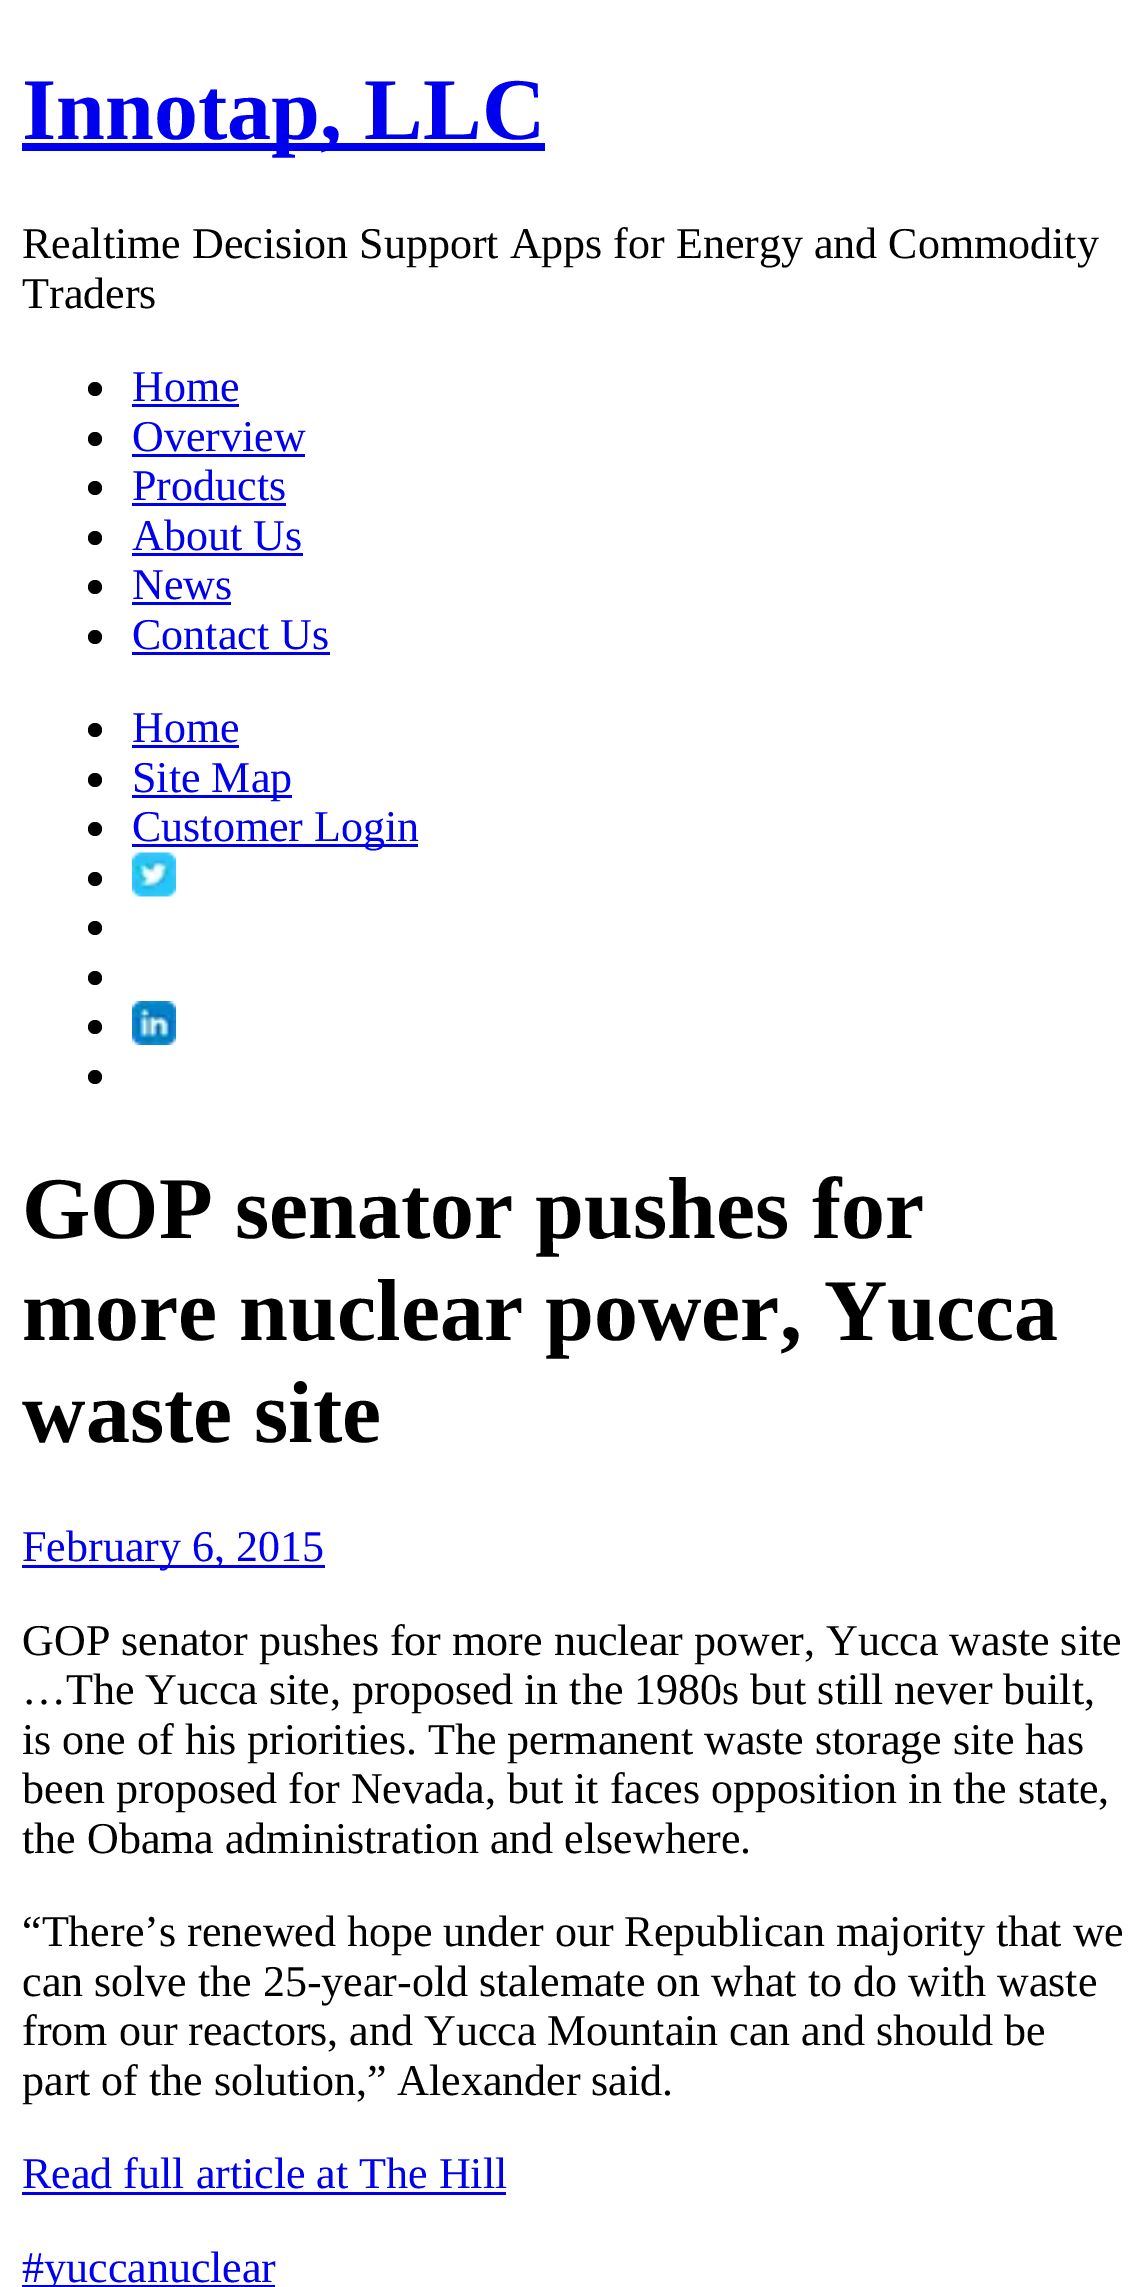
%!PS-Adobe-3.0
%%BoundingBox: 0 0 1145 2287
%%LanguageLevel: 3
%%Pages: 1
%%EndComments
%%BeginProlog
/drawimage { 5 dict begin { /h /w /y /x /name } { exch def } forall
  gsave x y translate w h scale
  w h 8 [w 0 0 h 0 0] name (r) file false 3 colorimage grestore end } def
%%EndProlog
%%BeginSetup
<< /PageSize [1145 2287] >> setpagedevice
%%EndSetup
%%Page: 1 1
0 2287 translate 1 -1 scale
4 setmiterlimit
1 setgray
0 0 1145 2287 rectfill
0 0 0.933 setrgbcolor
22 143 523 8 rectfill
0 setgray
newpath 95 389 7 0 360 arc closepath fill
0 0 0.933 setrgbcolor
132 404 107 3 rectfill
0 setgray
newpath 95 439 7 0 360 arc closepath fill
0 0 0.933 setrgbcolor
132 454 173 3 rectfill
0 setgray
newpath 95 488 7 0 360 arc closepath fill
0 0 0.933 setrgbcolor
132 503 154 3 rectfill
0 setgray
newpath 95 538 7 0 360 arc closepath fill
0 0 0.933 setrgbcolor
132 553 171 3 rectfill
0 setgray
newpath 95 587 7 0 360 arc closepath fill
0 0 0.933 setrgbcolor
132 602 99 3 rectfill
0 setgray
newpath 95 637 7 0 360 arc closepath fill
0 0 0.933 setrgbcolor
132 652 198 3 rectfill
0 setgray
newpath 95 730 7 0 360 arc closepath fill
0 0 0.933 setrgbcolor
132 745 107 3 rectfill
0 setgray
newpath 95 780 7 0 360 arc closepath fill
0 0 0.933 setrgbcolor
132 795 160 3 rectfill
0 setgray
newpath 95 829 7 0 360 arc closepath fill
0 0 0.933 setrgbcolor
132 844 286 3 rectfill
0 setgray
newpath 95 879 7 0 360 arc closepath fill
(images/1.raw) 132 852 44 45 drawimage
newpath 95 928 7 0 360 arc closepath fill
newpath 95 978 7 0 360 arc closepath fill
newpath 95 1027 7 0 360 arc closepath fill
(images/2.raw) 132 1001 44 44 drawimage
newpath 95 1077 7 0 360 arc closepath fill
0 0 0.933 setrgbcolor
22 1565 303 3 rectfill
22 2192 484 3 rectfill
22 2285 253 2 rectfill
/LiberationSerif-Bold [88 0 0 -88 0 0] selectfont
22 139 moveto (Innotap, LLC) show
/LiberationSerif-Regular [44 0 0 -44 0 0] selectfont
0 setgray
22 258 moveto (Realtime Decision Support Apps for Energy and Commodity) show
22 308 moveto (Traders) show
0 0 0.933 setrgbcolor
132 401 moveto (Home) show
132 451 moveto (Overview) show
132 500 moveto (Products) show
132 550 moveto (About Us) show
132 599 moveto (News) show
132 649 moveto (Contact Us) show
132 742 moveto (Home) show
132 792 moveto (Site Map) show
132 841 moveto (Customer Login) show
/LiberationSerif-Bold [88 0 0 -88 0 0] selectfont
0 setgray
22 1238 moveto (GOP senator pushes for) show
22 1340 moveto (more nuclear power, Yucca) show
22 1442 moveto (waste site) show
/LiberationSerif-Regular [44 0 0 -44 0 0] selectfont
0 0 0.933 setrgbcolor
22 1561 moveto (February 6, 2015) show
0 setgray
22 1655 moveto (GOP senator pushes for more nuclear power, Yucca waste site) show
22 1704 moveto (…The Yucca site, proposed in the 1980s but still never built,) show
22 1754 moveto (is one of his priorities. The permanent waste storage site has) show
22 1803 moveto (been proposed for Nevada, but it faces opposition in the state,) show
22 1853 moveto (the Obama administration and elsewhere.) show
22 1946 moveto (“There’s renewed hope under our Republican majority that we) show
22 1996 moveto (can solve the 25-year-old stalemate on what to do with waste) show
22 2045 moveto (from our reactors, and Yucca Mountain can and should be) show
22 2095 moveto (part of the solution,” Alexander said.) show
0 0 0.933 setrgbcolor
22 2188 moveto (Read full article at The Hill) show
22 2282 moveto (#yuccanuclear) show
showpage
%%EOF
